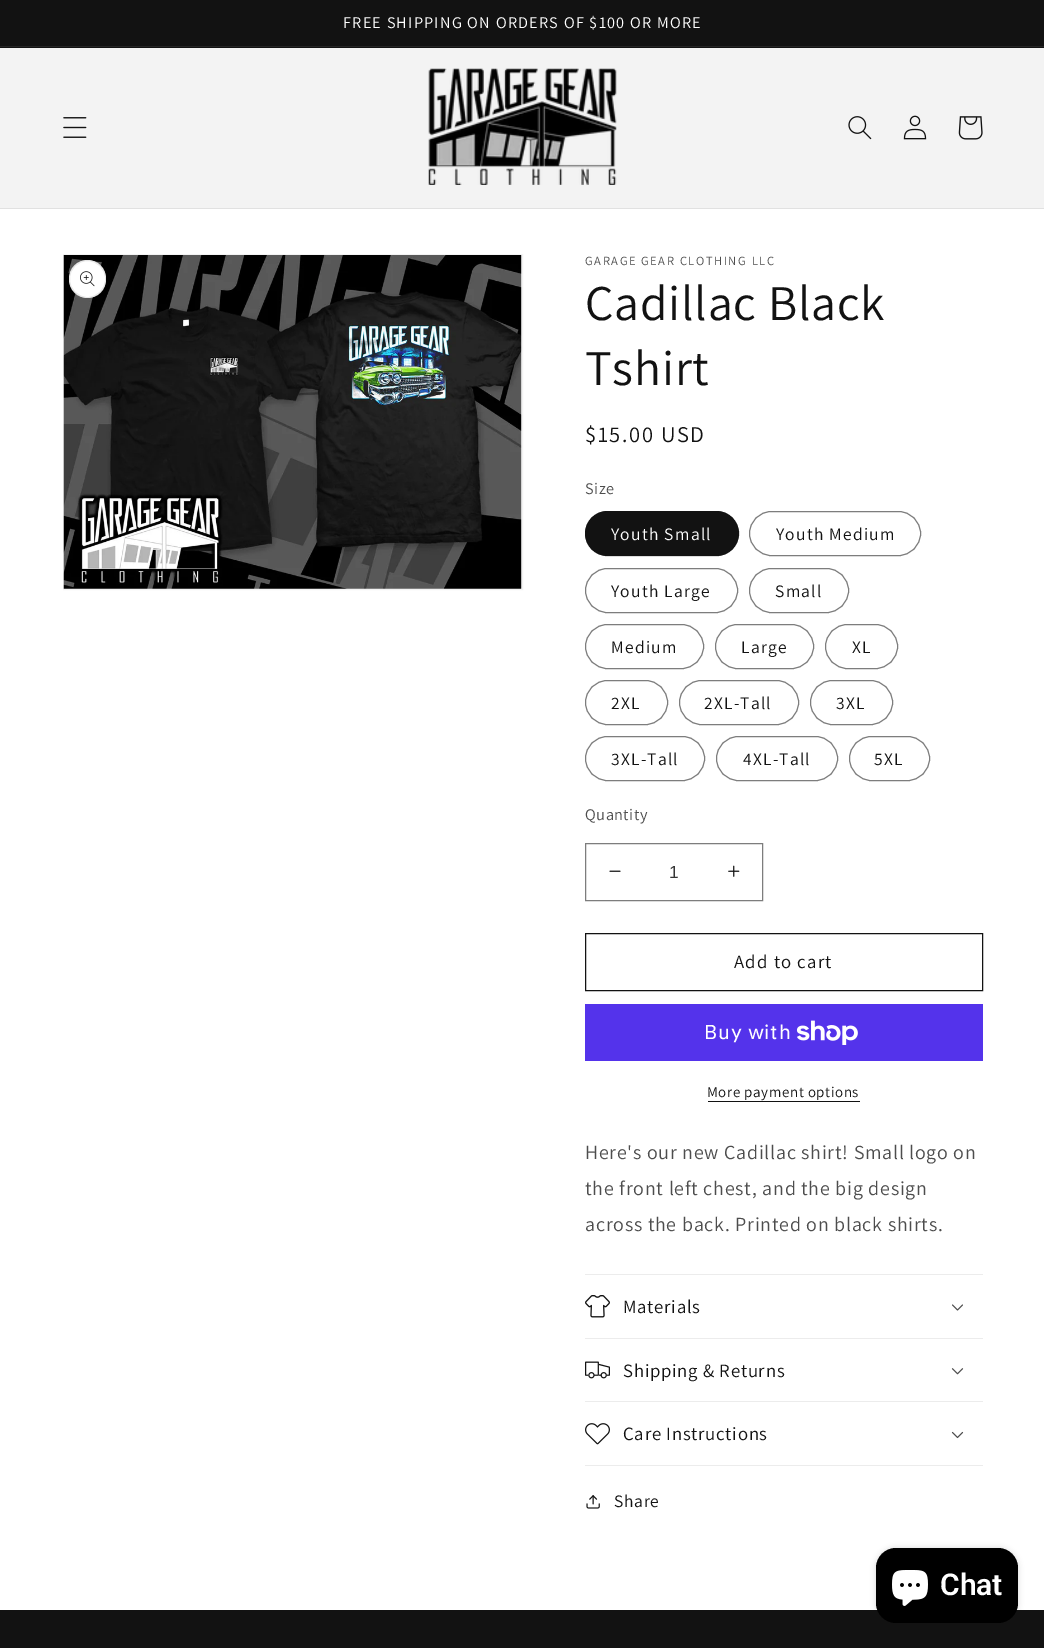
%!PS-Adobe-3.0
%%BoundingBox: 0 0 1044 1648
%%LanguageLevel: 3
%%Pages: 1
%%EndComments
%%BeginProlog
/setalpha { dup .setfillconstantalpha .setstrokeconstantalpha } def
/rrect { 5 dict begin { /r /h /w /y /x } { exch def } forall
  x r add y moveto x w add y 2 copy h add r arct x w add y h add x 1 index r arct
  x y h add x y r arct x y 2 copy exch w add exch r arct closepath end } def
/softshadow { 12 dict begin { /a /b /q /h /w /y /x } { exch def } forall gsave /was 0 def
  9 -2 -9 { dup b mul 4 div /e exch def 1 sub .425 mul 2.718 exch exp 1 add a .99 .min exch div /now exch def
    1 1 now sub 1 was sub div sub setalpha /was now def
    w h .min e 2 mul add 0 gt { x e sub y e sub w e 2 mul add h e 2 mul add
      q e add b .6 mul add w h .min 2 div e add .min 0 .max rrect fill } if } for grestore end } def
/drawimage { 5 dict begin { /h /w /y /x /name } { exch def } forall
  gsave x y translate w h scale
  w h 8 [w 0 0 h 0 0] name (r) file false 3 colorimage grestore end } def
%%EndProlog
%%BeginSetup
<< /PageSize [1044 1648] /PageUsesTransparency true >> setpagedevice
%%EndSetup
%%Page: 1 1
0 .pushpdf14devicefilter
0 1648 translate 1 -1 scale
4 setmiterlimit
1 setgray
0 0 1044 1648 rectfill
0.071 setgray
0 0 1044 48 rectfill
0.145 setgray
0 46 1044 1 rectfill
0.953 setgray
0 48 1044 160 rectfill
0.882 setgray
0 208 1044 1 rectfill
(images/1.raw) 63 117 24 21 drawimage
(images/2.raw) 428 68 189 117 drawimage
(images/3.raw) 848 116 24 24 drawimage
(images/4.raw) 903 115 24 25 drawimage
(images/5.raw) 958 116 25 24 drawimage
0.953 setgray
63.5 254.5 459 335 rectstroke
(images/6.raw) 63 255 459 334 drawimage
1 setgray
69 260 37 38 18.5 rrect fill
0.1 setalpha
0.071 setgray
69.5 260.5 36 37 18 rrect stroke
1 setalpha
(images/7.raw) 80 271 15 16 drawimage
585 511 154 45 22.5 rrect fill
0.55 setalpha
585.5 511.5 153 44 22 rrect stroke
1 setalpha
0.49 setgray
749.5 511.5 171 44 22 rrect stroke
585.5 568.5 152 44 22 rrect stroke
749.5 568.5 99 44 22 rrect stroke
585.5 624.5 118 44 22 rrect stroke
715.5 624.5 98 44 22 rrect stroke
825.5 624.5 72 44 22 rrect stroke
585.5 680.5 82 44 22 rrect stroke
679.5 680.5 119 44 22 rrect stroke
810.5 680.5 82 44 22 rrect stroke
585.5 736.5 119 44 22 rrect stroke
716.5 736.5 121 44 22 rrect stroke
849.5 736.5 80 44 22 rrect stroke
(images/8.raw) 609 870 12 2 drawimage
(images/9.raw) 728 865 12 12 drawimage
585.5 843.5 177 57 rectstroke
0.071 setgray
585.5 933.5 397 57 rectstroke
0.329 0.2 0.922 setrgbcolor
585 1004 398 57 rectfill
(images/10.raw) 796 1020 62 25 drawimage
0.071 setgray
708 1101 152 1 rectfill
0.925 setgray
585 1274 398 1 rectfill
585 1338 398 1 rectfill
(images/11.raw) 585 1295 25 23 drawimage
(images/12.raw) 952 1304 11 7 drawimage
585 1401 398 1 rectfill
(images/13.raw) 585 1361 25 18 drawimage
(images/14.raw) 951 1368 13 7 drawimage
585 1465 398 1 rectfill
(images/15.raw) 585 1423 25 22 drawimage
(images/16.raw) 951 1431 13 8 drawimage
(images/17.raw) 586 1495 14 14 drawimage
0.071 setgray
0 1610 1044 38 rectfill
0 setgray
876 1548 142 75 20 3 0.15 softshadow
876 1548 142 75 20 rrect fill
(images/18.raw) 892 1570 36 36 drawimage
/Assistant-Regular [16.25 0 0 -16.25 0 0] selectfont
1 setgray
343 28 moveto 1.25 0 (FREE SHIPPING ON ORDERS OF $100 OR MORE) ashow
/Assistant-Regular [12.5 0 0 -12.5 0 0] selectfont
0.302 setgray
585 265 moveto 1.6 0 (GARAGE GEAR CLOTHING LLC) ashow
/Assistant-Regular [50 0 0 -50 0 0] selectfont
0.071 setgray
585 320 moveto 0.75 0 (Cadillac Black) ashow
585 385 moveto 0.75 0 (Tshirt) ashow
/Assistant-Regular [22.5 0 0 -22.5 0 0] selectfont
585 442 moveto 1.6 0 ($15.00 USD) ashow
/Assistant-Regular [16.25 0 0 -16.25 0 0] selectfont
0.302 setgray
585 494 moveto 0.5 0 (Size) ashow
/Assistant-Regular [17.5 0 0 -17.5 0 0] selectfont
1 setgray
611 540 moveto 1.25 0 (Youth Small) ashow
0.071 setgray
776 540 moveto 1.25 0 (Youth Medium) ashow
611 597 moveto 1.25 0 (Youth Large) ashow
775 597 moveto 1.25 0 (Small) ashow
611 653 moveto 1.25 0 (Medium) ashow
741 653 moveto 1.25 0 (Large) ashow
852 653 moveto 1.25 0 (XL) ashow
611 709 moveto 1.25 0 (2XL) ashow
704 709 moveto 1.25 0 (2XL-Tall) ashow
836 709 moveto 1.25 0 (3XL) ashow
611 765 moveto 1.25 0 (3XL-Tall) ashow
743 765 moveto 1.25 0 (4XL-Tall) ashow
874 765 moveto 1.25 0 (5XL) ashow
/Assistant-Regular [16.25 0 0 -16.25 0 0] selectfont
0.302 setgray
585 820 moveto 0.5 0 (Quantity) ashow
/LiberationSans-Regular [17.5 0 0 -17.5 0 0] selectfont
0.212 setgray
669 878 moveto (1) show
/Assistant-Regular [18.75 0 0 -18.75 0 0] selectfont
0.071 setgray
734 968 moveto 1.25 0 (Add to cart) ashow
/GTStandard-Regular [20 0 0 -20 0 0] selectfont
1 setgray
704 1039 moveto 0.75 0 (Buy with) ashow
/Assistant-Regular [15 0 0 -15 0 0] selectfont
0.071 setgray
707 1097 moveto 0.6 0 (More payment options) ashow
/Assistant-Regular [20 0 0 -20 0 0] selectfont
0.302 setgray
585 1159 moveto 0.75 0 (Here's our new Cadillac shirt! Small logo on) ashow
585 1195 moveto 0.75 0 (the front left chest, and the big design) ashow
585 1231 moveto 0.75 0 (across the back. Printed on black shirts.) ashow
/Assistant-Regular [18.75 0 0 -18.75 0 0] selectfont
0.071 setgray
623 1313 moveto 0.75 0 (Materials) ashow
623 1377 moveto 0.75 0 (Shipping & Returns) ashow
623 1440 moveto 0.75 0 (Care Instructions) ashow
/Assistant-Regular [17.5 0 0 -17.5 0 0] selectfont
614 1507 moveto 0.75 0 (Share) ashow
/Roboto-SemiBold [30 0 0 -30 0 0] selectfont
1 setgray
940 1595 moveto (Chat) show
.poppdf14devicefilter showpage
%%EOF
